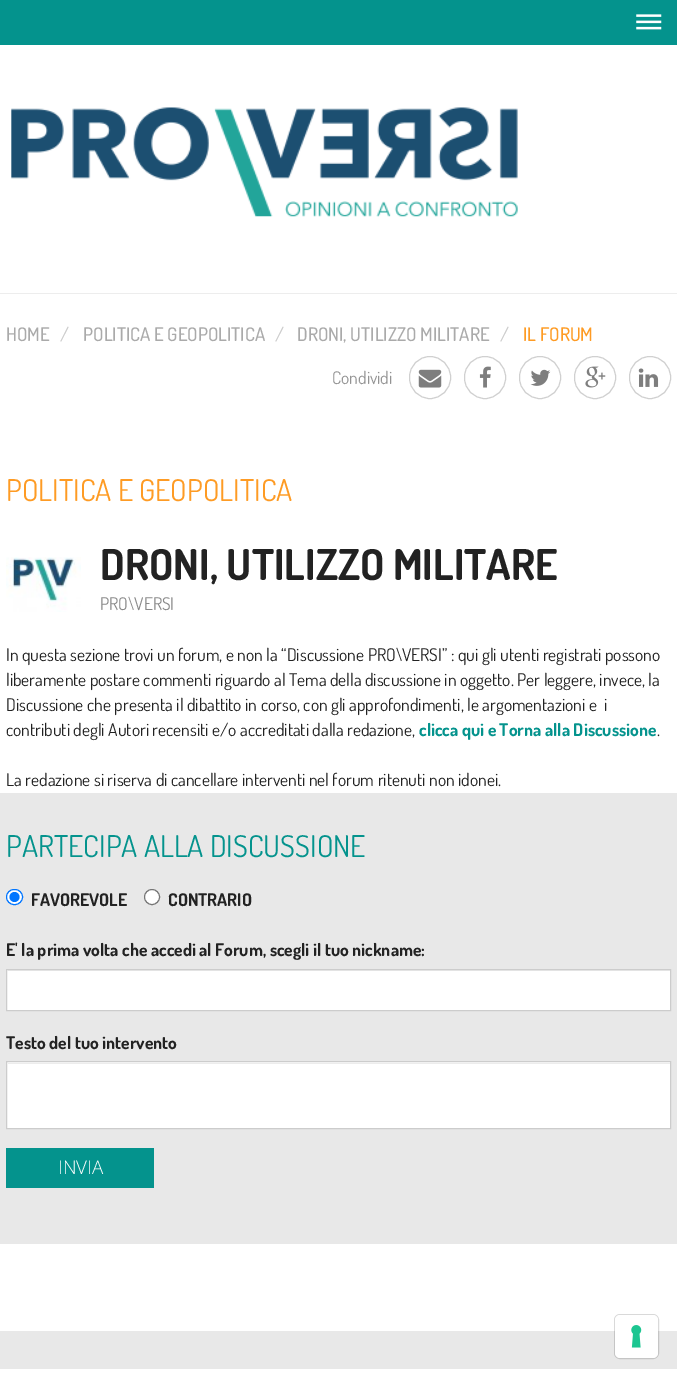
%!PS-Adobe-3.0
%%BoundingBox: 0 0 677 1377
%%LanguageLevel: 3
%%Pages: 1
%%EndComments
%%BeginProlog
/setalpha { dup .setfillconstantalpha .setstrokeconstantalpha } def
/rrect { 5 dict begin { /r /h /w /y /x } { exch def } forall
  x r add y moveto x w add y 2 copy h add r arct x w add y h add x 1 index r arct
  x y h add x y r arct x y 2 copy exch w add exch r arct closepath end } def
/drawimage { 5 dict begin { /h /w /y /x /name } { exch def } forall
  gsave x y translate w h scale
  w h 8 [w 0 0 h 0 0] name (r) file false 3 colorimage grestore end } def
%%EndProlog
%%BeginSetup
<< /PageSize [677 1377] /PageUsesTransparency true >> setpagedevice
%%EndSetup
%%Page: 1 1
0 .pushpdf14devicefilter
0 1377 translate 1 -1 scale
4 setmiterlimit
1 setgray
0 0 677 1377 rectfill
0.929 setgray
0 293 677 1 rectfill
0.016 0.576 0.553 setrgbcolor
0 0 677 45 rectfill
(images/1.raw) 636 14 26 16 drawimage
(images/2.raw) 11 107 507 110 drawimage
0.816 setgray
409.5 356.5 41 42 20.5 rrect stroke
(images/3.raw) 418 369 24 19 drawimage
464.5 356.5 41 42 20.5 rrect stroke
(images/4.raw) 479 366 12 22 drawimage
519.5 356.5 41 42 20.5 rrect stroke
(images/5.raw) 530 369 21 17 drawimage
574.5 356.5 41 42 20.5 rrect stroke
(images/6.raw) 585 366 21 22 drawimage
629.5 356.5 41 42 20.5 rrect stroke
(images/7.raw) 638 368 21 19 drawimage
(images/8.raw) 6 557 75 55 drawimage
0.91 setgray
0 793 677 576 rectfill
1 setgray
6.5 889.5 16 15 7.5 rrect gsave fill grestore
0 0.459 1 setrgbcolor
stroke
newpath 14.5 897 5 0 360 arc closepath fill
1 setgray
newpath 152 897 7.5 0 360 arc closepath gsave fill grestore
0.463 setgray
stroke
1 setgray
7 970 663 40 rectfill
0.925 setgray
8 970 662 1 rectfill
0.8 setgray
6.5 969.5 664 41 rectstroke
1 setgray
7 1062 663 66 rectfill
0.925 setgray
8 1063 662 1 rectfill
0.8 setgray
6.5 1061.5 664 67 rectstroke
0.016 0.576 0.553 setrgbcolor
6 1148 148 40 rectfill
1 setgray
0 1244 677 87 rectfill
0.15 setalpha
0 setgray
614.5 1314.5 44 44 5.5 rrect stroke
1 setalpha
1 setgray
615 1315 43 43 5 rrect fill
(images/9.raw) 631 1325 11 23 drawimage
/Dosis-Medium [18.75 0 0 -18.75 0 0] selectfont
0.667 setgray
6 341 moveto (HOME) show
0.8 setgray
60 341 moveto (/) show
0.667 setgray
83 341 moveto (POLITICA E GEOPOLITICA) show
0.8 setgray
275 341 moveto (/) show
0.667 setgray
297 341 moveto (DRONI, UTILIZZO MILITARE) show
0.8 setgray
500 341 moveto (/) show
0.996 0.608 0.141 setrgbcolor
523 341 moveto (IL FORUM) show
/Dosis-Regular [17.5 0 0 -17.5 0 0] selectfont
0.58 setgray
332 384 moveto (Condividi) show
/Dosis-Regular [30 0 0 -30 0 0] selectfont
0.996 0.608 0.141 setrgbcolor
6 501 moveto (POLITICA E GEOPOLITICA) show
/Dosis-Bold [42.5 0 0 -42.5 0 0] selectfont
0.133 setgray
100 580 moveto (DRONI, UTILIZZO MILITARE) show
/Dosis-Regular [17.5 0 0 -17.5 0 0] selectfont
0.537 setgray
100 610 moveto (PRO\\VERSI) show
0.133 setgray
6 661 moveto (In questa sezione trovi un forum, e non la “Discussione PRO\\VERSI” : qui gli utenti registrati possono) show
6 686 moveto (liberamente postare commenti riguardo al Tema della discussione in oggetto. Per leggere, invece, la) show
6 711 moveto (Discussione che presenta il dibattito in corso, con gli approfondimenti, le argomentazioni e  i) show
6 736 moveto (contributi degli Autori recensiti e/o accreditati dalla redazione,) show
/Dosis-Bold [17.5 0 0 -17.5 0 0] selectfont
0.016 0.576 0.553 setrgbcolor
419 736 moveto (clicca qui e Torna alla Discussione) show
/Dosis-Regular [17.5 0 0 -17.5 0 0] selectfont
0.133 setgray
657 736 moveto (.) show
6 786 moveto (La redazione si riserva di cancellare interventi nel forum ritenuti non idonei.) show
/Dosis-Regular [30 0 0 -30 0 0] selectfont
0.016 0.576 0.553 setrgbcolor
6 857 moveto (PARTECIPA ALLA DISCUSSIONE) show
/Dosis-Bold [17.5 0 0 -17.5 0 0] selectfont
0.133 setgray
31 906 moveto (FAVOREVOLE) show
168 906 moveto (CONTRARIO) show
6 956 moveto (E' la prima volta che accedi al Forum, scegli il tuo nickname:) show
6 1049 moveto (Testo del tuo intervento) show
/OpenSans-Light [18.75 0 0 -18.75 0 0] selectfont
1 setgray
58 1174 moveto (INVIA) show
.poppdf14devicefilter showpage
%%EOF
